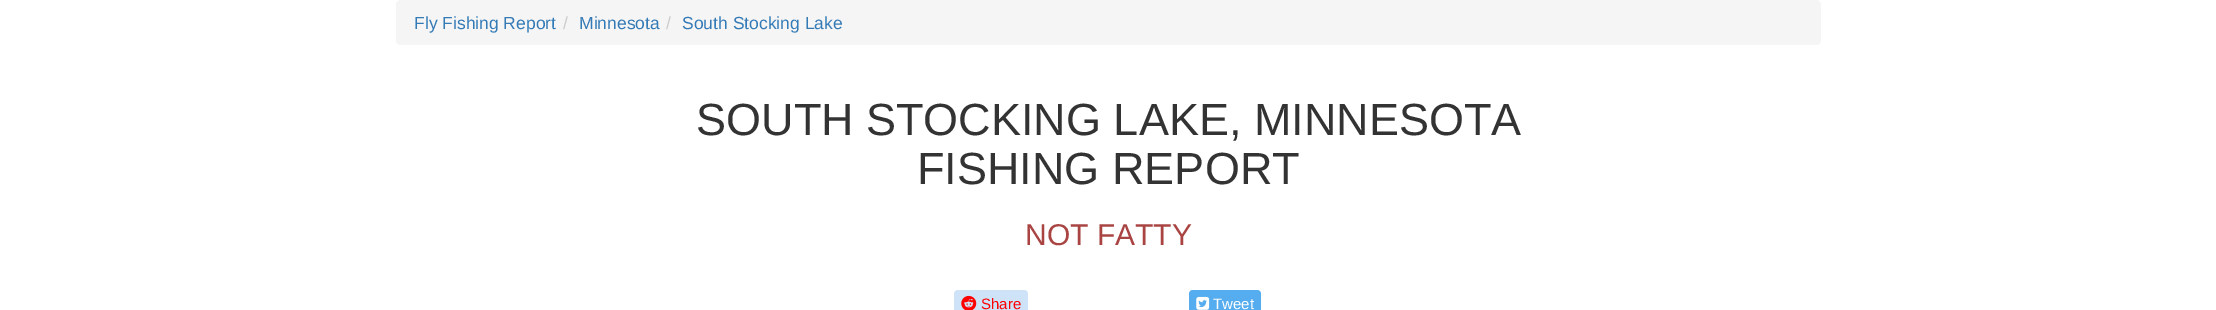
%!PS-Adobe-3.0
%%BoundingBox: 0 0 2216 310
%%LanguageLevel: 3
%%Pages: 1
%%EndComments
%%BeginProlog
/rrect { 5 dict begin { /r /h /w /y /x } { exch def } forall
  x r add y moveto x w add y 2 copy h add r arct x w add y h add x 1 index r arct
  x y h add x y r arct x y 2 copy exch w add exch r arct closepath end } def
/drawimage { 5 dict begin { /h /w /y /x /name } { exch def } forall
  gsave x y translate w h scale
  w h 8 [w 0 0 h 0 0] name (r) file false 3 colorimage grestore end } def
%%EndProlog
%%BeginSetup
<< /PageSize [2216 310] >> setpagedevice
%%EndSetup
%%Page: 1 1
0 310 translate 1 -1 scale
4 setmiterlimit
1 setgray
0 0 2216 310 rectfill
0.961 setgray
396 0 1425 45 5 rrect fill
0.808 0.89 0.973 setrgbcolor
954 290 74 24 4 rrect fill
(images/1.raw) 961 295 16 15 drawimage
0.333 0.675 0.933 setrgbcolor
1189 290 72 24 4 rrect fill
(images/2.raw) 1196 296 14 14 drawimage
/LiberationSans-Regular [17.5 0 0 -17.5 0 0] selectfont
0.2 0.478 0.718 setrgbcolor
414 29 moveto (Fly Fishing Report) show
0.8 setgray
563 29 moveto (/) show
0.2 0.478 0.718 setrgbcolor
579 29 moveto (Minnesota) show
0.8 setgray
666 29 moveto (/) show
0.2 0.478 0.718 setrgbcolor
682 29 moveto (South Stocking Lake) show
/LiberationSans-Regular [45 0 0 -45 0 0] selectfont
0.2 setgray
696 135 moveto (SOUTH STOCKING LAKE, MINNESOTA) show
917 184 moveto (FISHING REPORT) show
/LiberationSans-Regular [30 0 0 -30 0 0] selectfont
0.663 0.267 0.259 setrgbcolor
1025 245 moveto (NOT FATTY) show
/LiberationSans-Regular [15 0 0 -15 0 0] selectfont
1 0 0 setrgbcolor
981 309 moveto (Share) show
1 setgray
1213 309 moveto (Tweet) show
showpage
%%EOF
